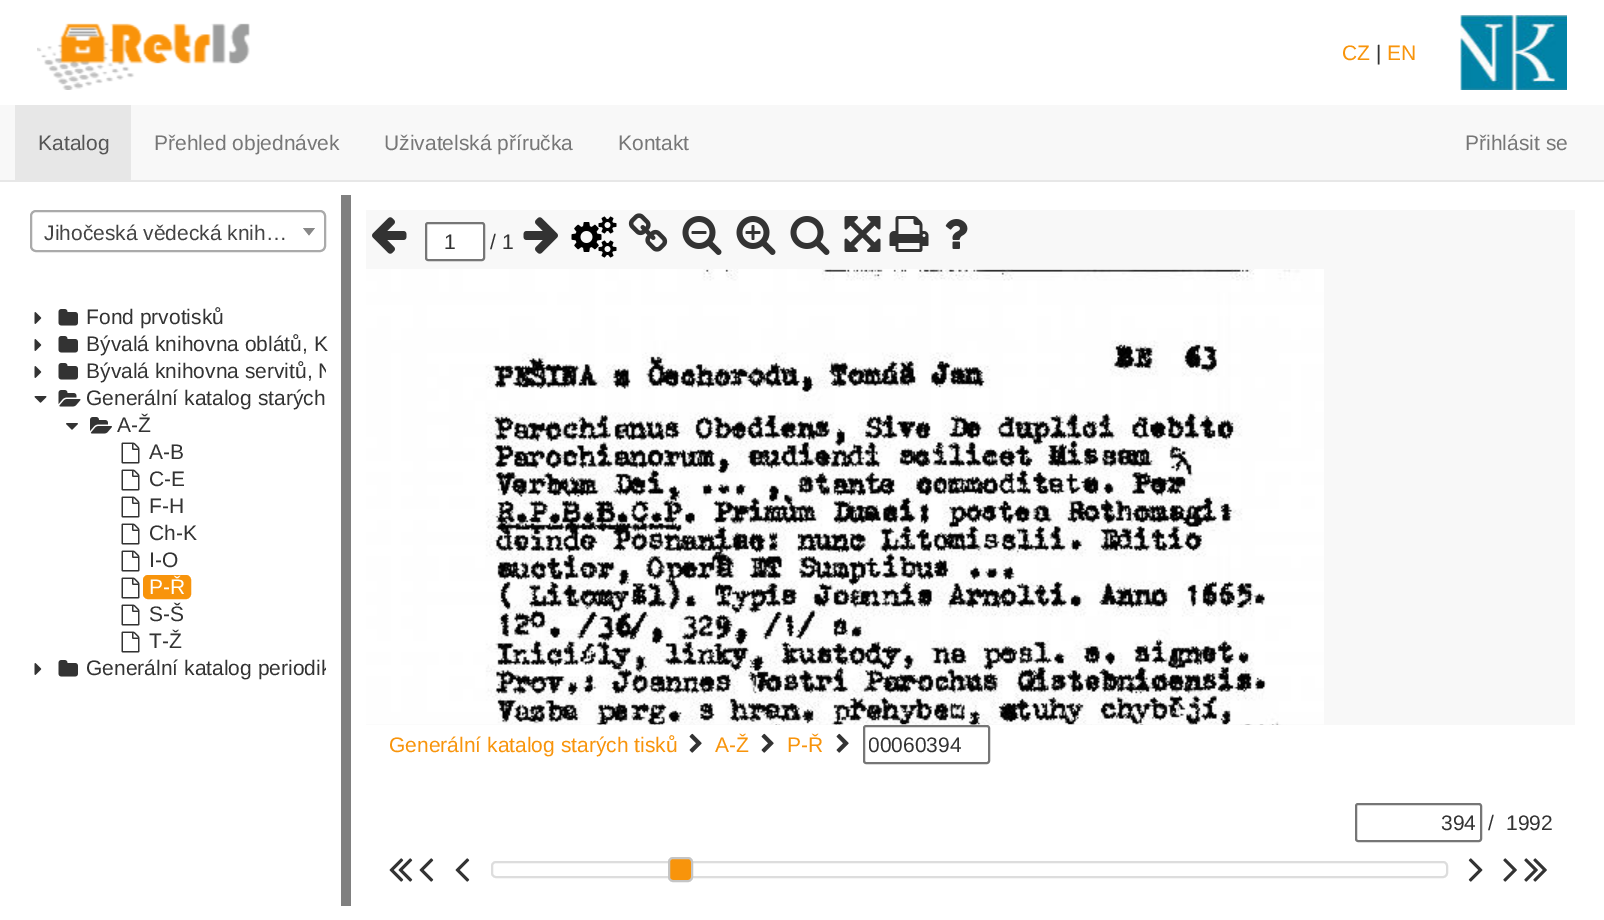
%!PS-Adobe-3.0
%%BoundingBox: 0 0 1604 920
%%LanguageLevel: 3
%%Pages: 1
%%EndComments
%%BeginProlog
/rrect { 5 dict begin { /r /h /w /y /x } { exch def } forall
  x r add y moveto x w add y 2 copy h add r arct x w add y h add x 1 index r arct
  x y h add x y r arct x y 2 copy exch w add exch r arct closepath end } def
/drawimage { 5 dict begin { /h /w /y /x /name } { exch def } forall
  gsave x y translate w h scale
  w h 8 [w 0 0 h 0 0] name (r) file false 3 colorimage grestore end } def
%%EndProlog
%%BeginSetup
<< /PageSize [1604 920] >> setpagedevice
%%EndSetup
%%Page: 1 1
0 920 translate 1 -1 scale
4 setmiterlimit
1 setgray
0 0 1604 920 rectfill
(images/1.raw) 37 23 213 67 drawimage
(images/2.raw) 1460 15 107 75 drawimage
0.973 setgray
0 105 1604 75 rectfill
0.906 setgray
0 180 1604 2 rectfill
15 105 116 75 rectfill
0.667 setgray
2 setlinewidth
31 211 294 40 5 rrect stroke
0.533 setgray
newpath 303 228 moveto 315 228 lineto 309 235.5 lineto closepath fill
(images/3.raw) 34 312 8 12 drawimage
(images/4.raw) 58 309 20 17 drawimage
(images/3.raw) 34 339 8 12 drawimage
(images/4.raw) 58 336 20 17 drawimage
(images/3.raw) 34 366 8 12 drawimage
(images/4.raw) 58 363 20 17 drawimage
(images/5.raw) 34 396 13 7 drawimage
(images/6.raw) 58 390 23 17 drawimage
(images/7.raw) 66 423 12 7 drawimage
(images/8.raw) 90 417 22 17 drawimage
(images/9.raw) 121 442 19 22 drawimage
(images/9.raw) 121 469 19 22 drawimage
(images/9.raw) 121 496 19 22 drawimage
(images/9.raw) 121 523 19 22 drawimage
(images/9.raw) 121 550 19 22 drawimage
(images/9.raw) 121 577 19 22 drawimage
0.973 0.58 0.043 setrgbcolor
144 576 46 22 4 rrect gsave fill grestore
stroke
(images/9.raw) 121 604 19 22 drawimage
(images/9.raw) 121 631 19 22 drawimage
(images/3.raw) 34 663 8 12 drawimage
(images/4.raw) 58 660 20 17 drawimage
0.502 setgray
341 195 10 711 rectfill
0.973 setgray
366 210 1209 515 rectfill
(images/10.raw) 372 217 35 37 drawimage
1 setgray
426 223 58 37 2 rrect gsave fill grestore
0.463 setgray
stroke
(images/11.raw) 523 217 35 37 drawimage
(images/12.raw) 571 216 46 42 drawimage
(images/13.raw) 628 213 40 39 drawimage
(images/14.raw) 682 216 40 39 drawimage
(images/15.raw) 736 216 40 39 drawimage
(images/16.raw) 790 216 40 39 drawimage
(images/17.raw) 844 216 37 36 drawimage
(images/18.raw) 889 216 40 36 drawimage
(images/19.raw) 945 219 23 30 drawimage
(images/20.raw) 366 269 958 456 drawimage
(images/21.raw) 689 733 13 20 drawimage
(images/21.raw) 761 733 13 20 drawimage
(images/21.raw) 836 733 13 20 drawimage
864 726 125 37 2 rrect stroke
1356 804 125 37 2 rrect stroke
(images/22.raw) 389 858 24 24 drawimage
(images/23.raw) 419 858 15 24 drawimage
(images/23.raw) 455 858 15 24 drawimage
0.867 setgray
492 862 955 15 4 rrect stroke
0.973 0.58 0.043 setrgbcolor
669 858 23 23 4 rrect gsave fill grestore
0.773 setgray
stroke
(images/24.raw) 1468 858 15 24 drawimage
(images/25.raw) 1503 858 14 24 drawimage
(images/26.raw) 1524 858 23 24 drawimage
/LiberationSans-Regular [21 0 0 -21 0 0] selectfont
0.973 0.58 0.043 setrgbcolor
1342 60 moveto (CZ) show
0.2 setgray
1376 60 moveto (|) show
0.973 0.58 0.043 setrgbcolor
1387 60 moveto (EN) show
0.333 setgray
38 150 moveto (Katalog) show
0.467 setgray
154 150 moveto (Přehled objednávek) show
384 150 moveto (Uživatelská příručka) show
618 150 moveto (Kontakt) show
1465 150 moveto (Přihlásit se) show
0.267 setgray
44 240 moveto (Jihočeská vědecká knih…) show
0.2 setgray
86 324 moveto (Fond prvotisků) show
86 351 moveto (Bývalá knihovna oblátů, K) show
gsave
30 297 296 594 rectclip
86 378 moveto (Bývalá knihovna servitů, N) show
grestore
86 405 moveto (Generální katalog starých) show
117 432 moveto (A-Ž) show
149 459 moveto (A-B) show
149 486 moveto (C-E) show
149 513 moveto (F-H) show
149 540 moveto (Ch-K) show
149 567 moveto (I-O) show
1 setgray
149 594 moveto (P-Ř) show
0.2 setgray
149 621 moveto (S-Š) show
149 648 moveto (T-Ž) show
gsave
30 297 296 594 rectclip
86 675 moveto (Generální katalog periodik) show
grestore
444 249 moveto (1) show
490 249 moveto (/ 1) show
0.973 0.58 0.043 setrgbcolor
389 752 moveto (Generální katalog starých tisků) show
715 752 moveto (A-Ž) show
787 752 moveto (P-Ř) show
gsave
869 729 115 30 rectclip
0.2 setgray
868 752 moveto (00060394) show
grestore
0.2 setgray
1441 830 moveto (394) show
1488 830 moveto (/) show
1506 830 moveto (1992) show
showpage
%%EOF
